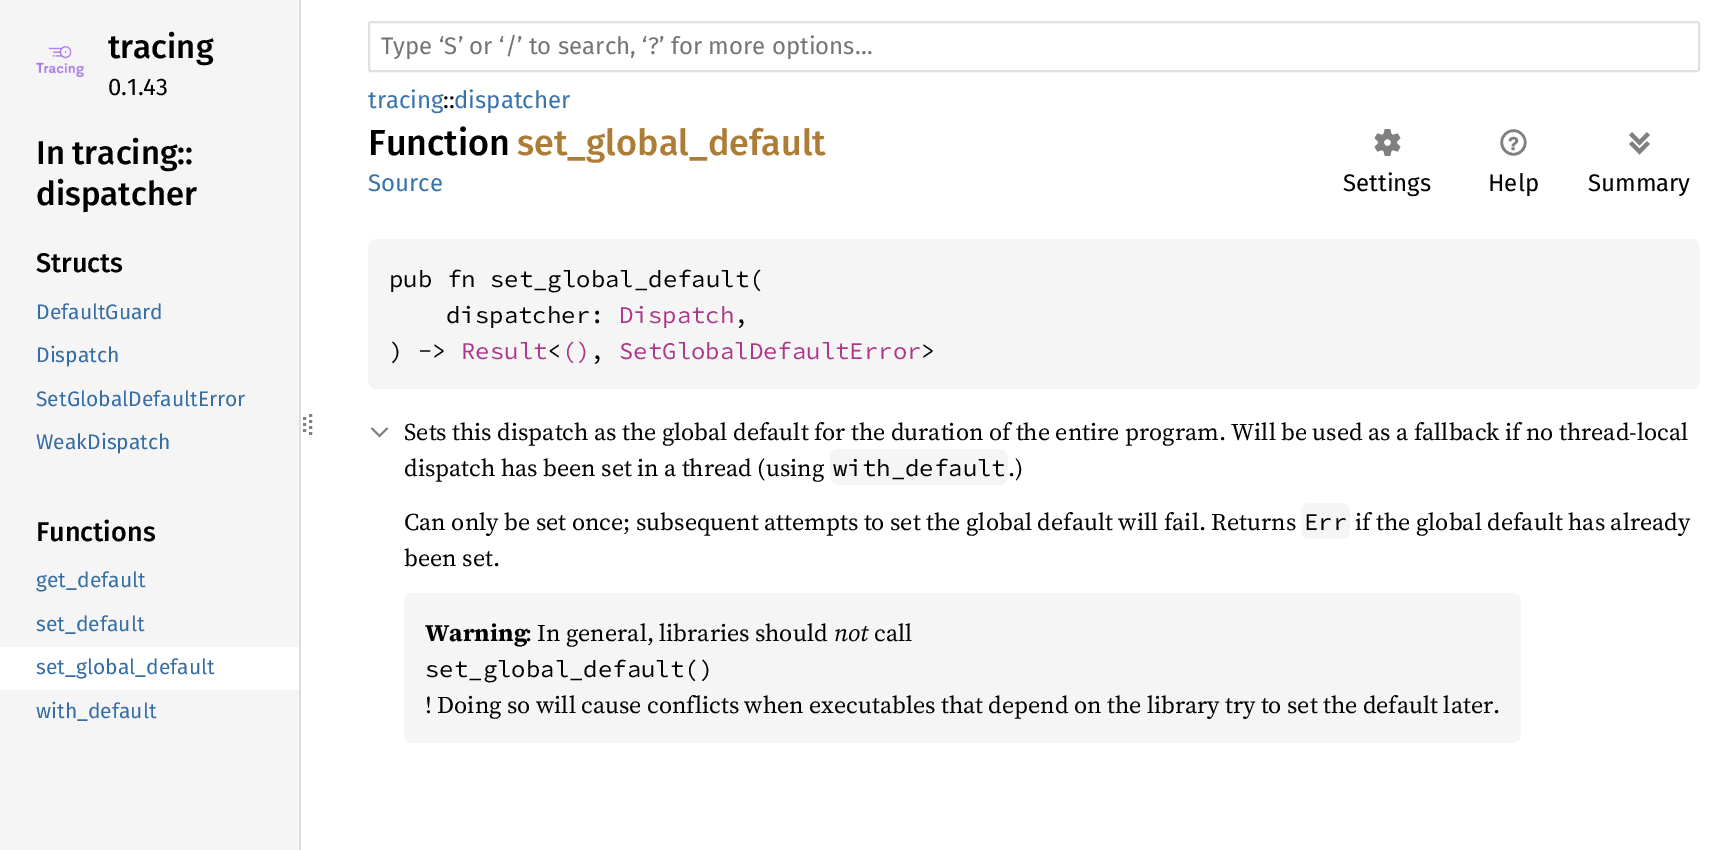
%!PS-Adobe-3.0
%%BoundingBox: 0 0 1722 850
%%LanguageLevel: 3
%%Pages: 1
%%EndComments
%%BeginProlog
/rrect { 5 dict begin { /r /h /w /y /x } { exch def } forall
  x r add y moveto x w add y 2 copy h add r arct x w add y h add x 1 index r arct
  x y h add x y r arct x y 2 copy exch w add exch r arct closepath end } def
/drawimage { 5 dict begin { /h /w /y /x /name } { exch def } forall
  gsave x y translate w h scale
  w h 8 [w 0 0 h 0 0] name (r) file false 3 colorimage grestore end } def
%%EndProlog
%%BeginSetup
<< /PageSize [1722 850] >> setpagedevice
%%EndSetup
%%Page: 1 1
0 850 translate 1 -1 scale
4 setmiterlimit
1 setgray
0 0 1722 850 rectfill
0.961 setgray
0 0 299 850 rectfill
0.867 setgray
299 0 2 850 rectfill
(images/1.raw) 36 46 48 32 drawimage
1 setgray
0 647 299 43 rectfill
0.502 setgray
3 setlinewidth
newpath 304.5 417 moveto 304.5 420 lineto 304.5 423 moveto 304.5 426 lineto 304.5 429 moveto 304.5 432 lineto stroke
[3 3] 0 setdash
newpath 310.5 414 moveto 310.5 438 lineto stroke
0.878 setgray
2 setlinewidth
[] 0 setdash
369 22 1330 49 2 rrect stroke
(images/2.raw) 1374 129 27 27 drawimage
(images/3.raw) 1500 129 27 27 drawimage
(images/4.raw) 1629 132 21 23 drawimage
0.961 setgray
368 239 1332 150 9 rrect fill
0.502 setgray
newpath 371.5 428 moveto 379.5 436 lineto 387.5 428 lineto stroke
0.961 setgray
830 449 178 36 9 rrect fill
1301 503 49 36 9 rrect fill
404 593 1117 150 9 rrect fill
/FiraSans-Medium [33 0 0 -33 0 0] selectfont
0 setgray
108 58 moveto (tracing) show
/FiraSans-Regular [24 0 0 -24 0 0] selectfont
108 95 moveto (0.1.43) show
/FiraSans-Medium [33 0 0 -33 0 0] selectfont
36 164 moveto -1 0 32 (In tracing::) widthshow
36 205 moveto (dispatcher) show
/FiraSans-Medium [27 0 0 -27 0 0] selectfont
36 272 moveto (Structs) show
/FiraSans-Regular [21 0 0 -21 0 0] selectfont
0.208 0.427 0.643 setrgbcolor
36 319 moveto (DefaultGuard) show
36 362 moveto (Dispatch) show
36 406 moveto (SetGlobalDefaultError) show
36 449 moveto (WeakDispatch) show
/FiraSans-Medium [27 0 0 -27 0 0] selectfont
0 setgray
36 541 moveto (Functions) show
/FiraSans-Regular [21 0 0 -21 0 0] selectfont
0.208 0.427 0.643 setrgbcolor
36 587 moveto (get_default) show
36 631 moveto (set_default) show
36 674 moveto (set_global_default) show
36 718 moveto (with_default) show
/FiraSans-Regular [24 0 0 -24 0 0] selectfont
0.459 setgray
381 54 moveto (Type ‘S’ or ‘/’ to search, ‘?’ for more options…) show
0.22 0.451 0.678 setrgbcolor
368 108 moveto (tracing) show
0 setgray
443 108 moveto (::) show
0.22 0.451 0.678 setrgbcolor
454 108 moveto (dispatcher) show
/FiraSans-Medium [36 0 0 -36 0 0] selectfont
0 setgray
368 155 moveto (Function) show
0.678 0.486 0.216 setrgbcolor
517 155 moveto (set_global_default) show
/FiraSans-Regular [24 0 0 -24 0 0] selectfont
0.22 0.451 0.678 setrgbcolor
368 191 moveto (Source) show
0 setgray
1343 191 moveto (Settings) show
1488 191 moveto (Help) show
1588 191 moveto (Summary) show
/SourceCodePro-Regular [24 0 0 -24 0 0] selectfont
389 287 moveto (pub fn set_global_default\() show
446 323 moveto (dispatcher:) show
0.678 0.216 0.541 setrgbcolor
619 323 moveto (Dispatch) show
0 setgray
734 323 moveto (,) show
389 359 moveto (\) ->) show
0.678 0.216 0.541 setrgbcolor
461 359 moveto (Result \(\)) show
619 359 moveto (SetGlobalDefaultError) show
0 setgray
547 359 moveto (<) show
921 359 moveto (>) show
590 359 moveto (,) show
/SourceSerif4-Regular [24 0 0 -24 0 0] selectfont
404 440 moveto -0.25 0 32 (Sets this dispatch as the global default for the duration of the entire program. Will be used as a fallback if no thread-local) widthshow
404 476 moveto -0.25 0 32 (dispatch has been set in a thread \(using) widthshow
/SourceCodePro-Regular [24 0 0 -24 0 0] selectfont
833 476 moveto (with_default) show
/SourceSerif4-Regular [24 0 0 -24 0 0] selectfont
1008 476 moveto (.\)) show
404 530 moveto -0.1 0 32 (Can only be set once; subsequent attempts to set the global default will fail. Returns) widthshow
/SourceCodePro-Regular [24 0 0 -24 0 0] selectfont
1304 530 moveto (Err) show
/SourceSerif4-Regular [24 0 0 -24 0 0] selectfont
1355 530 moveto -0.25 0 32 (if the global default has already) widthshow
404 566 moveto (been set.) show
/SourceSerif4-Bold [24 0 0 -24 0 0] selectfont
425 641 moveto (Warning) show
/SourceSerif4-Regular [24 0 0 -24 0 0] selectfont
525 641 moveto -0.5 0 32 (: In general, libraries should) widthshow
/SourceSerif4-Italic [24 0 0 -24 0 0] selectfont
834 641 moveto (not) show
/SourceSerif4-Regular [24 0 0 -24 0 0] selectfont
874 641 moveto (call) show
/SourceCodePro-Regular [24 0 0 -24 0 0] selectfont
425 677 moveto (set_global_default\(\)) show
/SourceSerif4-Regular [24 0 0 -24 0 0] selectfont
425 713 moveto -0.25 0 32 (! Doing so will cause conflicts when) widthshow
809 713 moveto -0.25 0 32 (executables that depend on the library try to set the default later.) widthshow
showpage
%%EOF
